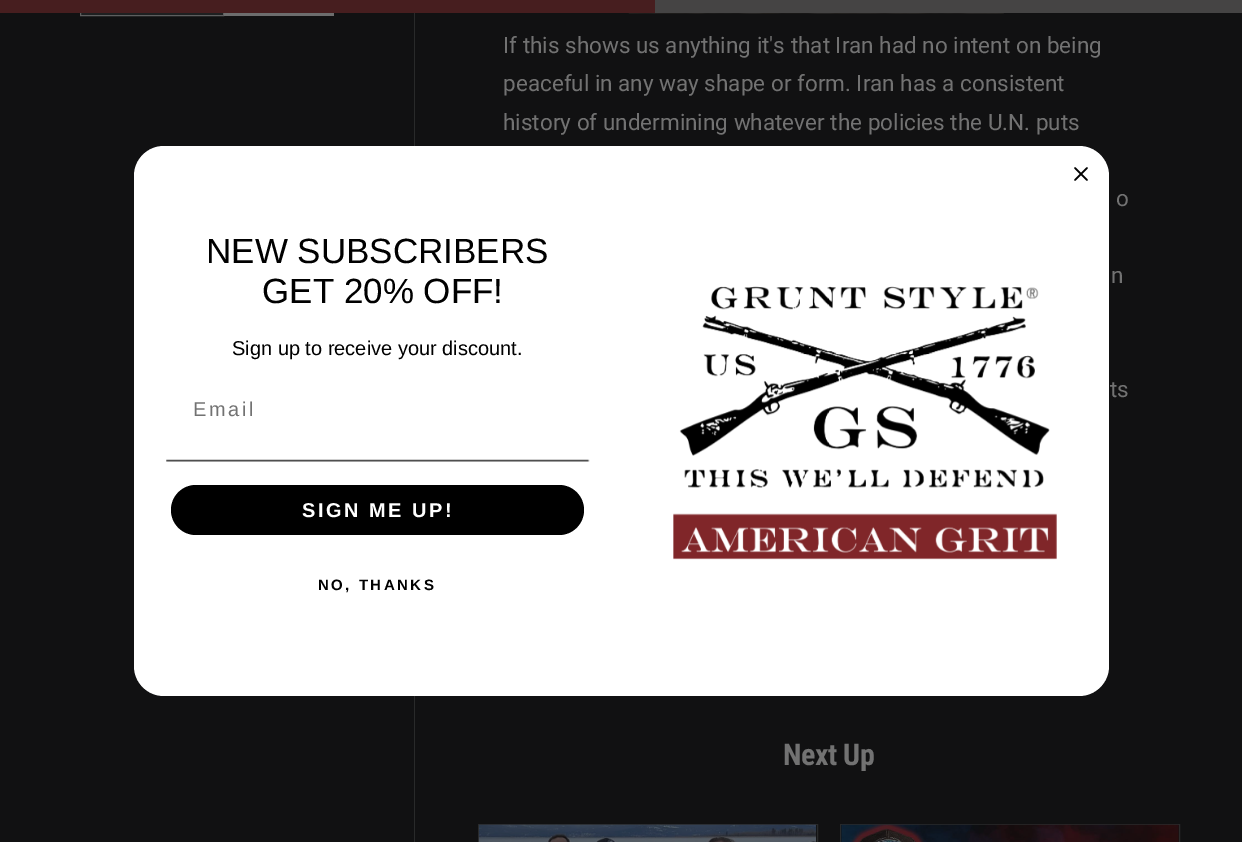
%!PS-Adobe-3.0
%%BoundingBox: 0 0 1242 842
%%LanguageLevel: 3
%%Pages: 1
%%EndComments
%%BeginProlog
/rrect { 5 dict begin { /r /h /w /y /x } { exch def } forall
  x r add y moveto x w add y 2 copy h add r arct x w add y h add x 1 index r arct
  x y h add x y r arct x y 2 copy exch w add exch r arct closepath end } def
/drawimage { 5 dict begin { /h /w /y /x /name } { exch def } forall
  gsave x y translate w h scale
  w h 8 [w 0 0 h 0 0] name (r) file false 3 colorimage grestore end } def
%%EndProlog
%%BeginSetup
<< /PageSize [1242 842] >> setpagedevice
%%EndSetup
%%Page: 1 1
0 842 translate 1 -1 scale
4 setmiterlimit
0.067 0.067 0.071 setrgbcolor
0 0 1242 842 rectfill
0.271 0.267 0.267 setrgbcolor
655 0 587 13 rectfill
0.122 0.125 0.129 setrgbcolor
81 13 142 2 rectfill
0.369 setgray
80.5 -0.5 143 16 rectstroke
0.278 0.118 0.122 setrgbcolor
0 0 655 13 rectfill
0.161 0.165 0.165 setrgbcolor
414 13 1 829 rectfill
1 setgray
134 146 975 550 30 rrect fill
0 setgray
1.5 setlinewidth
1 setlinecap
1 setlinejoin
newpath 1075 168 moveto 1087 180 lineto 1075 180 moveto 1087 168 lineto closepath stroke
(images/1.raw) 166 459 424 3 drawimage
171 485 413 50 25 rrect fill
(images/2.raw) 673 286 384 274 drawimage
0.427 setgray
224 13 110 3 rectfill
(images/3.raw) 628 13 376 1 drawimage
0.161 0.165 0.165 setrgbcolor
1 setlinewidth
0 setlinecap
0 setlinejoin
478.5 824.5 339 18 rectstroke
(images/4.raw) 478 824 339 18 drawimage
840.5 824.5 339 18 rectstroke
(images/5.raw) 841 824 338 18 drawimage
/LiberationSans-Regular [35 0 0 -35 0 0] selectfont
0 setgray
206 263 moveto (NEW SUBSCRIBERS) show
262 303 moveto (GET 20% OFF!) show
/LiberationSans-Regular [20 0 0 -20 0 0] selectfont
232 355 moveto (Sign up to receive your discount.) show
0.447 setgray
193 416 moveto 2.5 0 (Email) ashow
/LiberationSans-Bold [20 0 0 -20 0 0] selectfont
1 setgray
302 517 moveto 2.5 0 (SIGN ME UP!) ashow
/LiberationSans-Bold [15 0 0 -15 0 0] selectfont
0 setgray
318 590 moveto 2.5 0 (NO, THANKS) ashow
/Roboto-Regular [22.5 0 0 -22.5 0 0] selectfont
0.447 setgray
503 53 moveto (If this shows us anything it's that Iran had no intent on being) show
503 91 moveto (peaceful in any way shape or form. Iran has a consistent) show
503 130 moveto (history of undermining whatever the policies the U.N. puts) show
1116 206 moveto (o) show
1111 283 moveto (n) show
1110 397 moveto (ts) show
/RobotoCondensed-Bold [30 0 0 -30 0 0] selectfont
783 765 moveto -0.5 0 (Next Up) ashow
showpage
%%EOF
